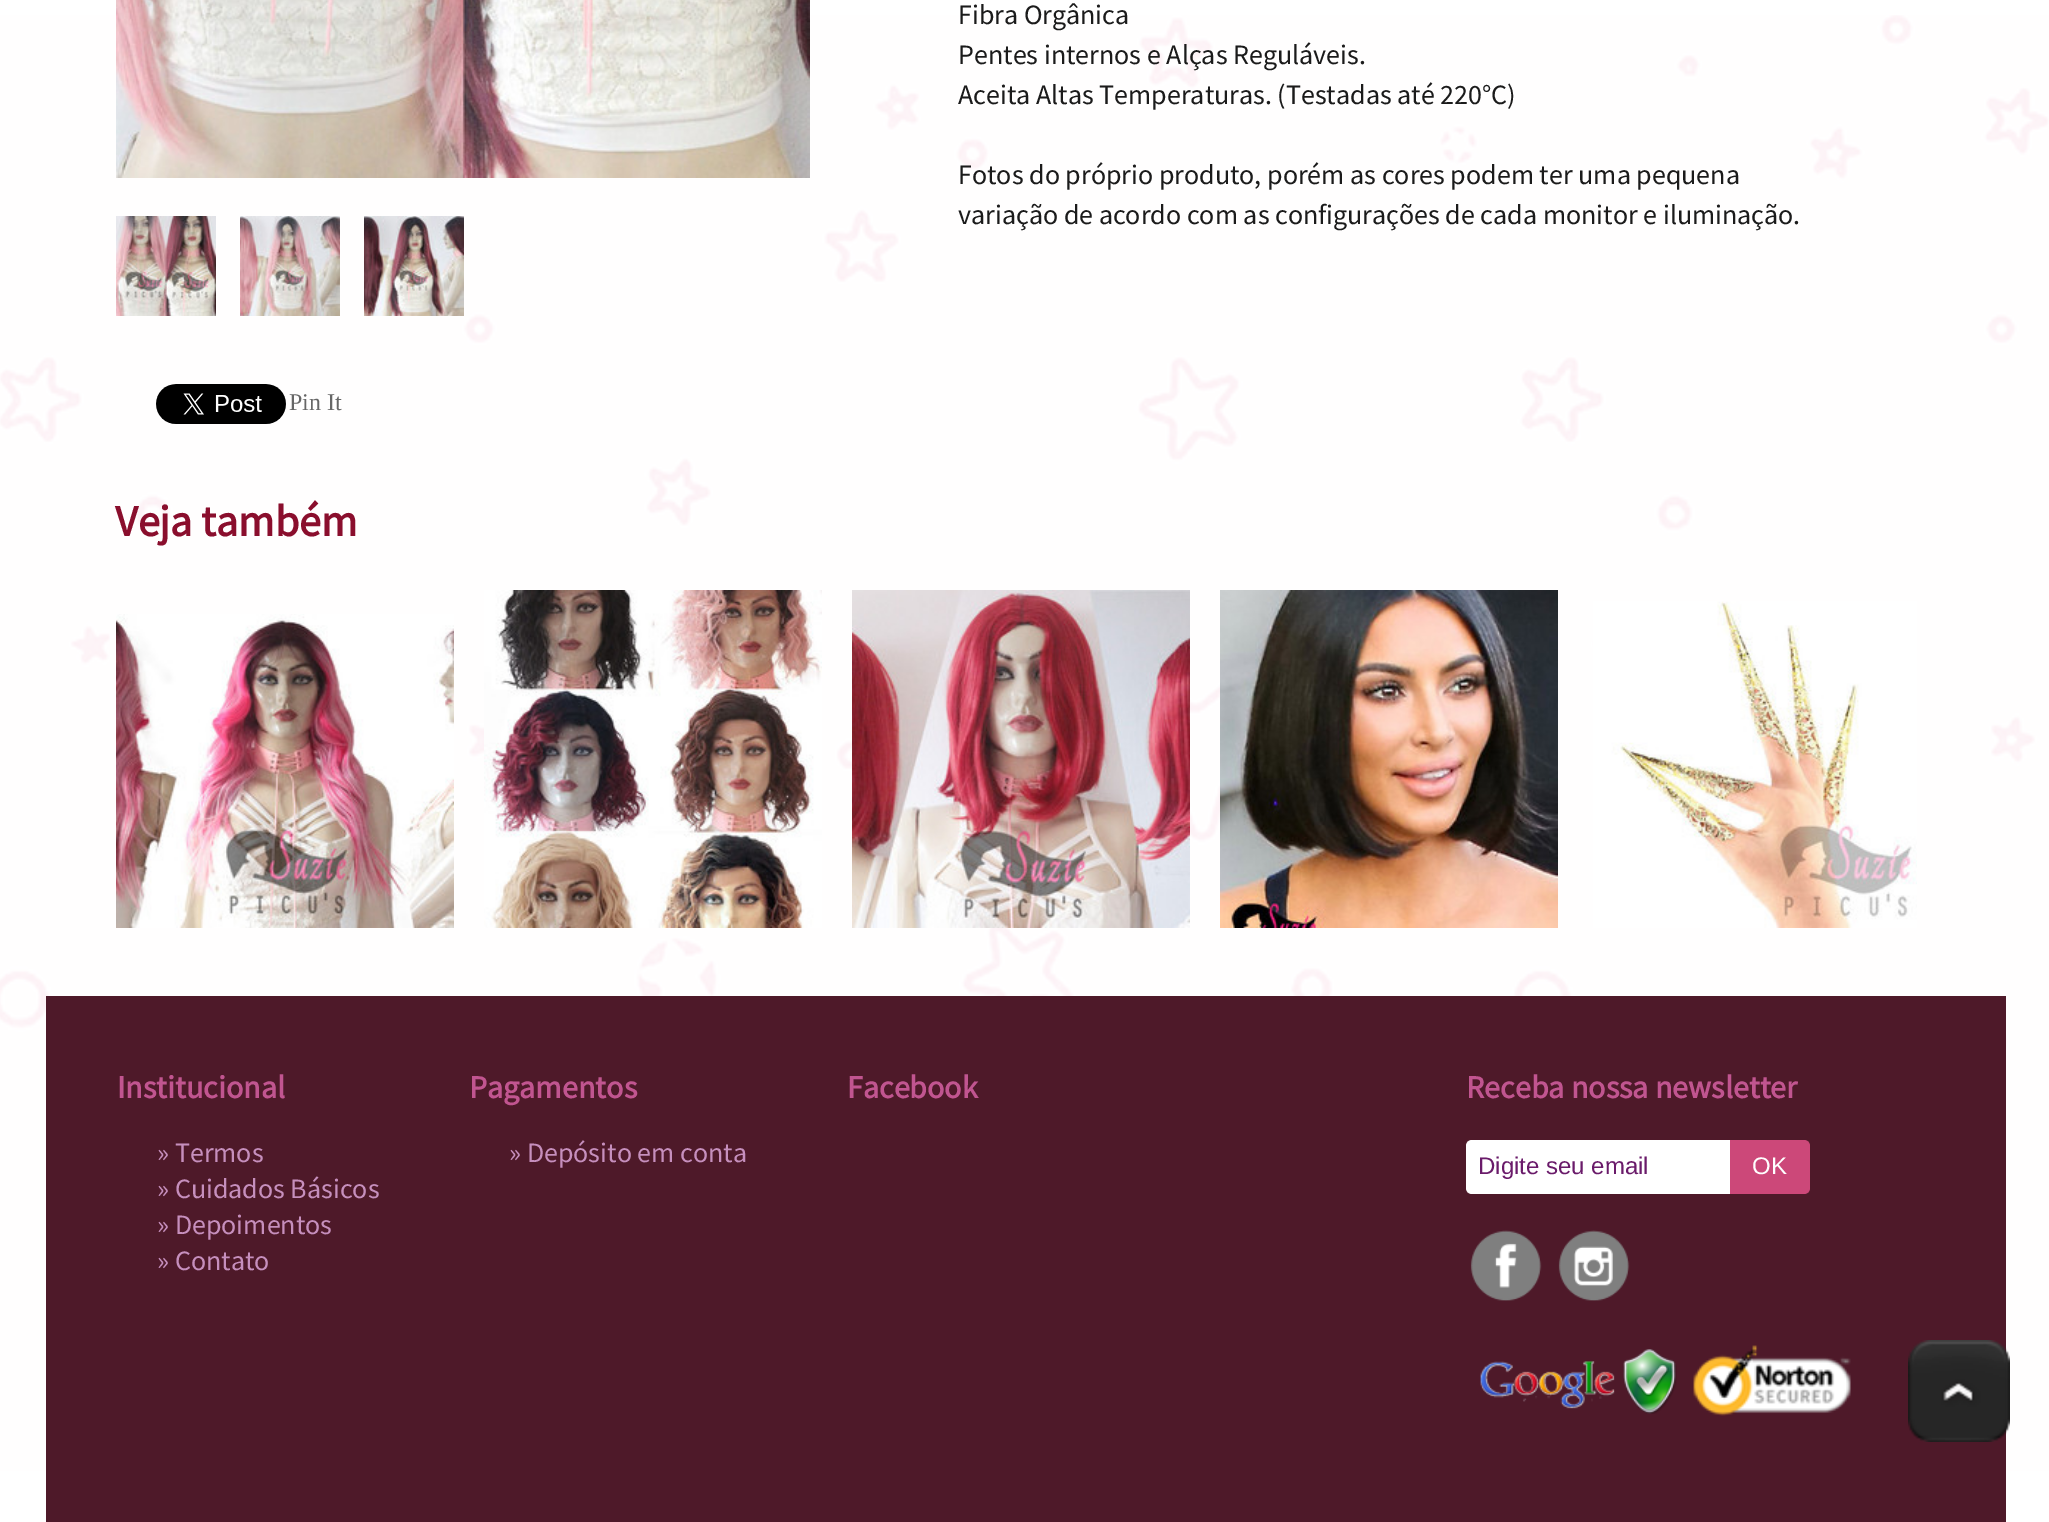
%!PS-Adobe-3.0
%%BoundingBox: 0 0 2049 1522
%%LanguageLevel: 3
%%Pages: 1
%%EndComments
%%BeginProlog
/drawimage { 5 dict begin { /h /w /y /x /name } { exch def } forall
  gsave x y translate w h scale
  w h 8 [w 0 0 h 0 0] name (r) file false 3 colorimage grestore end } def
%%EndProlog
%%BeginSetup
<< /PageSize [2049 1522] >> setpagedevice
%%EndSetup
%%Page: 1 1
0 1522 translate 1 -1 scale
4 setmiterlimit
1 setgray
0 0 2049 1522 rectfill
(images/1.raw) 0 15 2049 1456 drawimage
(images/2.raw) 116 0 694 178 drawimage
(images/3.raw) 116 216 100 100 drawimage
(images/4.raw) 240 216 100 100 drawimage
(images/5.raw) 364 216 100 100 drawimage
(images/6.raw) 156 384 130 40 drawimage
(images/7.raw) 116 614 338 314 drawimage
(images/8.raw) 484 590 338 338 drawimage
(images/9.raw) 852 590 338 338 drawimage
(images/10.raw) 1220 590 338 338 drawimage
(images/11.raw) 1593 601 324 327 drawimage
0.306 0.098 0.161 setrgbcolor
46 996 1960 526 rectfill
1 setgray
newpath 1472 1140 moveto 1730 1140 lineto 1730 1194 lineto 1472 1194 lineto 1468.5 1194 1466 1191.5 1466 1188 curveto 1466 1146 lineto 1466 1142.5 1468.5 1140 1472 1140 curveto closepath fill
0.8 0.282 0.475 setrgbcolor
newpath 1730 1140 moveto 1804 1140 lineto 1807.5 1140 1810 1142.5 1810 1146 curveto 1810 1188 lineto 1810 1191.5 1807.5 1194 1804 1194 curveto 1730 1194 lineto closepath fill
(images/12.raw) 1470 1230 72 71 drawimage
(images/13.raw) 1558 1230 72 71 drawimage
(images/14.raw) 1480 1349 197 65 drawimage
(images/15.raw) 1693 1345 158 71 drawimage
(images/16.raw) 1908 1340 102 102 drawimage
/SourceSansPro-Regular [28 0 0 -28 0 0] selectfont
0.106 setgray
958 24 moveto (Fibra Orgânica) show
958 64 moveto (Pentes internos e Alças Reguláveis.) show
958 104 moveto (Aceita Altas Temperaturas. \(Testadas até 220°C\)) show
958 184 moveto (Fotos do próprio produto, porém as cores podem ter uma pequena) show
958 224 moveto (variação de acordo com as configurações de cada monitor e iluminação.) show
/LiberationSerif-Regular [24 0 0 -24 0 0] selectfont
0.4 setgray
289 410 moveto (Pin It) show
/SourceSansPro-Bold [44 0 0 -44 0 0] selectfont
0.541 0.055 0.176 setrgbcolor
115 536 moveto (Veja também) show
/SourceSansPro-Bold [32 0 0 -32 0 0] selectfont
0.757 0.333 0.565 setrgbcolor
117 1098 moveto (Institucional) show
/SourceSansPro-Regular [28 0 0 -28 0 0] selectfont
0.776 0.561 0.741 setrgbcolor
157 1162 moveto (» Termos) show
157 1198 moveto (» Cuidados Básicos) show
157 1234 moveto (» Depoimentos) show
157 1270 moveto (» Contato) show
/SourceSansPro-Bold [32 0 0 -32 0 0] selectfont
0.757 0.333 0.565 setrgbcolor
469 1098 moveto (Pagamentos) show
/SourceSansPro-Regular [28 0 0 -28 0 0] selectfont
0.776 0.561 0.741 setrgbcolor
509 1162 moveto (» Depósito em conta) show
/SourceSansPro-Bold [32 0 0 -32 0 0] selectfont
0.757 0.333 0.565 setrgbcolor
847 1098 moveto (Facebook) show
1466 1098 moveto (Receba nossa newsletter) show
/LiberationSans-Regular [24 0 0 -24 0 0] selectfont
0.416 0.106 0.416 setrgbcolor
1478 1174 moveto (Digite seu email) show
1 setgray
1752 1174 moveto (OK) show
showpage
%%EOF
